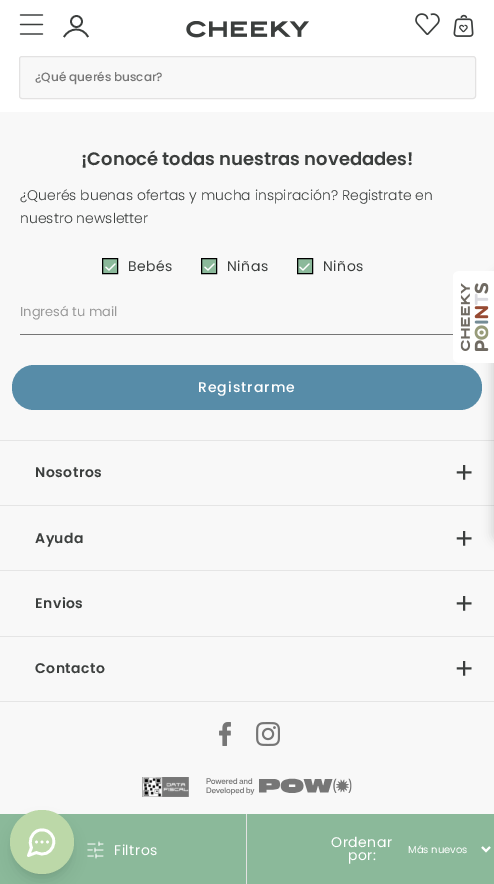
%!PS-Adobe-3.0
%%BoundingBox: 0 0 494 884
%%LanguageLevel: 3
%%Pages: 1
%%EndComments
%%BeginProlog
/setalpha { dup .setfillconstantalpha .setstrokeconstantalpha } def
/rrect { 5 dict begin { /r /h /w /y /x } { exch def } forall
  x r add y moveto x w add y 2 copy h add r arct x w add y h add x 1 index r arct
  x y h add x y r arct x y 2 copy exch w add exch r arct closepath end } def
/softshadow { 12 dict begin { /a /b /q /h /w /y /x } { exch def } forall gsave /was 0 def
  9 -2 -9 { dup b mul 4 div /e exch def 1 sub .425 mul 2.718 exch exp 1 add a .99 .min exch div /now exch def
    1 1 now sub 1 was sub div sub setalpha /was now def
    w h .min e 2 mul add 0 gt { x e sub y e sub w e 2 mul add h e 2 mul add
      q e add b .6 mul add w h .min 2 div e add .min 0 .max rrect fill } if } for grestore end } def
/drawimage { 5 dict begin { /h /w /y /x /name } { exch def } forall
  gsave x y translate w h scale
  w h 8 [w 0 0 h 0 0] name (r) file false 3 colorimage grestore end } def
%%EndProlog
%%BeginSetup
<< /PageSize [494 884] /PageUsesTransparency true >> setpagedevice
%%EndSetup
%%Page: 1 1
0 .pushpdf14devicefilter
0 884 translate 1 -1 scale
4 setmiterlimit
0.973 setgray
0 0 494 884 rectfill
1 setgray
0 0 494 112 rectfill
0.231 0.243 0.239 setrgbcolor
1.2 setlinewidth
1 setlinecap
newpath 20.5 15 moveto 42.5 15 lineto 20.5 24.5 moveto 42.5 24.5 lineto 20.5 34 moveto 42.5 34 lineto stroke
1.7 setlinewidth
0 setlinecap
newpath 76.5 21.5 5.5 0 360 arc closepath stroke
newpath 64 37 moveto 69 27.5 83 26.5 88 37 curveto stroke
(images/1.raw) 186 21 123 17 drawimage
(images/2.raw) 415 13 25 22 drawimage
(images/3.raw) 453 14 21 23 drawimage
0.973 setgray
19.5 56.5 456 42 2.5 rrect gsave fill grestore
0.89 0.886 0.886 setrgbcolor
1 setlinewidth
stroke
0.545 0.725 0.604 setrgbcolor
newpath 102.5 258.5 moveto 117.5 258.5 lineto 117.5 273.5 lineto 102.5 273.5 lineto closepath gsave fill grestore
0 setgray
stroke
(images/4.raw) 105 263 11 8 drawimage
0.545 0.725 0.604 setrgbcolor
newpath 201.5 258.5 moveto 216.5 258.5 lineto 216.5 273.5 lineto 201.5 273.5 lineto closepath gsave fill grestore
0 setgray
stroke
(images/4.raw) 204 263 11 8 drawimage
0.545 0.725 0.604 setrgbcolor
newpath 297.5 258.5 moveto 312.5 258.5 lineto 312.5 273.5 lineto 297.5 273.5 lineto closepath gsave fill grestore
0 setgray
stroke
(images/4.raw) 299 263 11 8 drawimage
0.463 setgray
20 334 433 1 rectfill
0.341 0.549 0.659 setrgbcolor
12 365 470 45 22 rrect fill
0.898 setgray
0 440 494 1 rectfill
0 505 494 1 rectfill
0 570 494 1 rectfill
0 636 494 1 rectfill
0 701 494 1 rectfill
(images/5.raw) 219 722 12 24 drawimage
(images/6.raw) 256 722 24 24 drawimage
(images/7.raw) 142 777 47 20 drawimage
(images/8.raw) 206 778 146 17 drawimage
0.545 0.725 0.604 setrgbcolor
0 814 494 70 rectfill
0 setgray
14 818 56 56 28 3 0.1 softshadow
(images/9.raw) 87 841 17 18 drawimage
13 823 58 58 29 7.5 0.1 softshadow
0.737 0.847 0.659 setrgbcolor
newpath 42 842 32 0 360 arc closepath fill
1 setgray
2.7 setlinewidth
1 setlinecap
1 setlinejoin
newpath 36.5 852.5 moveto 51 860 61.5 838 47 831 curveto 44 829.5 40 829.5 37 831 curveto 31 834 28.5 841.5 31.5 847.5 curveto 28.5 855.5 lineto closepath 36.5 842 moveto 36.5 842 lineto 42 842 moveto 42 842 lineto 47.5 842 moveto 47.5 842 lineto stroke
0.89 0.886 0.886 setrgbcolor
246 814 1 70 rectfill
1 setgray
2 setlinewidth
0 setlinecap
0 setlinejoin
newpath 482 847 moveto 486 851 lineto 490 847 lineto stroke
0 setgray
492 272 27 271 10 5 0.15 softshadow
(images/10.raw) 453 271 41 92 drawimage
/Poppins-Medium [12 0 0 -12 0 0] selectfont
0.463 setgray
35 81 moveto (¿Qué querés buscar?) show
/Poppins-SemiBold [18 0 0 -18 0 0] selectfont
0.231 0.243 0.239 setrgbcolor
81 165 moveto (¡Conocé todas nuestras novedades!) show
/Poppins-Light [14 0 0 -14 0 0] selectfont
20 200 moveto (¿Querés buenas ofertas y mucha inspiración? Registrate en) show
20 223 moveto (nuestro newsletter) show
/Poppins-Regular [14 0 0 -14 0 0] selectfont
128 271 moveto 0.5 0 (Bebés) ashow
227 271 moveto 0.5 0 (Niñas) ashow
323 271 moveto 0.5 0 (Niños) ashow
/Poppins-Regular [13 0 0 -13 0 0] selectfont
0.6 setgray
20 316 moveto (Ingresá tu mail) show
/Poppins-Medium [14 0 0 -14 0 0] selectfont
1 setgray
198 392 moveto 1 0 (Registrarme) ashow
/Poppins-SemiBold [14 0 0 -14 0 0] selectfont
0.231 0.243 0.239 setrgbcolor
35 477 moveto 0.5 0 (Nosotros) ashow
/LiberationSerif-Bold [32 0 0 -32 0 0] selectfont
455 483 moveto 0.5 0 (+) ashow
/Poppins-SemiBold [14 0 0 -14 0 0] selectfont
35 543 moveto 0.5 0 (Ayuda) ashow
/LiberationSerif-Bold [32 0 0 -32 0 0] selectfont
455 549 moveto 0.5 0 (+) ashow
/Poppins-SemiBold [14 0 0 -14 0 0] selectfont
35 608 moveto 0.5 0 (Envios) ashow
/LiberationSerif-Bold [32 0 0 -32 0 0] selectfont
455 614 moveto 0.5 0 (+) ashow
/Poppins-SemiBold [14 0 0 -14 0 0] selectfont
35 673 moveto 0.5 0 (Contacto) ashow
/LiberationSerif-Bold [32 0 0 -32 0 0] selectfont
455 679 moveto 0.5 0 (+) ashow
/Poppins-Regular [14 0 0 -14 0 0] selectfont
1 setgray
114 855 moveto 0.5 0 (Filtros) ashow
331 847 moveto 0.5 0 (Ordenar) ashow
/Poppins-Regular [10 0 0 -10 0 0] selectfont
408 853 moveto (Más nuevos) show
/Poppins-Regular [14 0 0 -14 0 0] selectfont
348 860 moveto 0.5 0 (por:) ashow
.poppdf14devicefilter showpage
%%EOF
